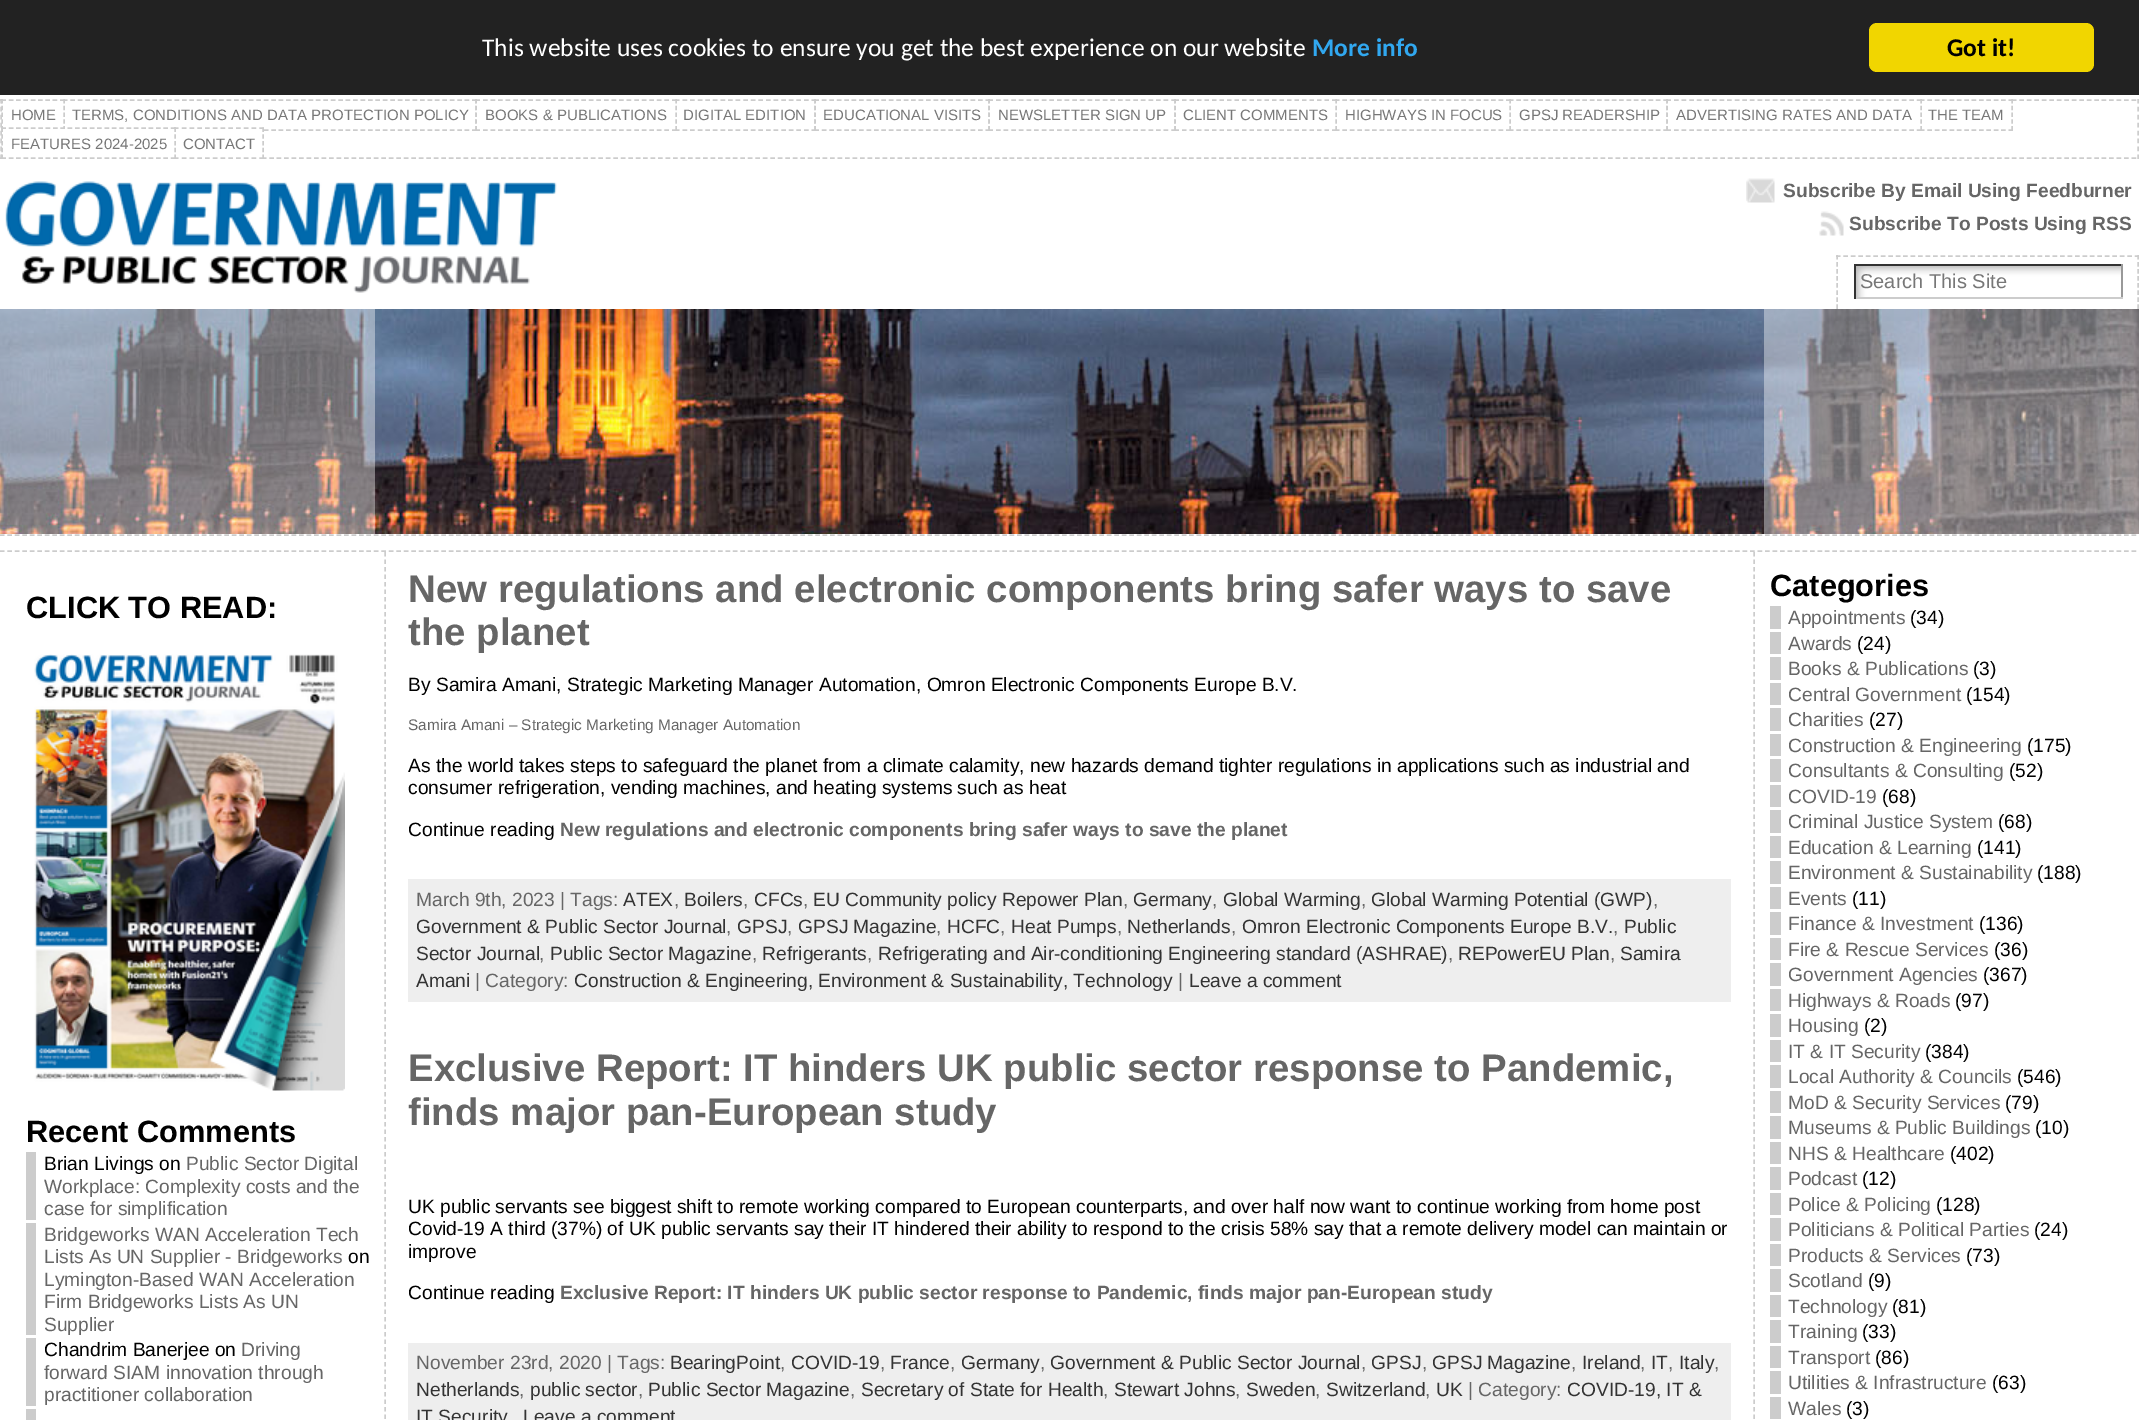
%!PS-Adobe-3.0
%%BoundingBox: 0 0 2139 1420
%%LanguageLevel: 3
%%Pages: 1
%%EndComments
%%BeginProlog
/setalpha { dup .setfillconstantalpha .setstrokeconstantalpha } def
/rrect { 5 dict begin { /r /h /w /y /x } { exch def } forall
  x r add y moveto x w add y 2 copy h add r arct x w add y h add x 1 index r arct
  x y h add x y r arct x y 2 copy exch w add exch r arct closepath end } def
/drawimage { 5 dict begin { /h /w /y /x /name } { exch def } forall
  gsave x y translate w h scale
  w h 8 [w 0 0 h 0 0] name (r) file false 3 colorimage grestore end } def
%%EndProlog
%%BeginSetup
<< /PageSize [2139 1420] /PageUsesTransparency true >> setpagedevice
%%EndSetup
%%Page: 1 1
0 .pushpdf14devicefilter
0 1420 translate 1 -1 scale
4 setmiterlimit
1 setgray
0 0 2139 1420 rectfill
0.133 setgray
0 0 2139 95 rectfill
0.945 0.839 0 setrgbcolor
1869 23 225 49 8 rrect fill
0.8 setgray
1.5 setlinewidth
[4.5 2.98] 0 setdash
newpath 0 100 moveto 2139 100 lineto stroke
[4.5 3.44] 0 setdash
newpath 2138 99 moveto 2138 159 lineto stroke
[4.5 2.98] 0 setdash
newpath 0 158 moveto 2139 158 lineto stroke
[4.5 3.44] 0 setdash
newpath 1 99 moveto 1 159 lineto stroke
1 setgray
2 99 61 2 rectfill
0.8 setgray
[4.5 2.82] 0 setdash
newpath 1.5 100 moveto 64.5 100 lineto stroke
newpath 1.5 130 moveto 64.5 130 lineto stroke
[4.5 2.25] 0 setdash
newpath 2 99 moveto 2 130.5 lineto stroke
1 setgray
63 99 413 32 rectfill
0.8 setgray
[4.5 2.94] 0 setdash
newpath 63 100 moveto 477 100 lineto stroke
[4.5 2.25] 0 setdash
newpath 476 99 moveto 476 130.5 lineto stroke
[4.5 2.94] 0 setdash
newpath 63 130 moveto 477 130 lineto stroke
[4.5 2.25] 0 setdash
newpath 64 99 moveto 64 130.5 lineto stroke
1 setgray
476 99 199 32 rectfill
0.8 setgray
[4.5 3.06] 0 setdash
newpath 475.5 100 moveto 676.5 100 lineto stroke
newpath 475.5 130 moveto 676.5 130 lineto stroke
[4.5 2.25] 0 setdash
newpath 476 99 moveto 476 130.5 lineto stroke
1 setgray
675 99 138 32 rectfill
0.8 setgray
[4.5 3.09] 0 setdash
newpath 675 100 moveto 816 100 lineto stroke
[4.5 2.25] 0 setdash
newpath 815 99 moveto 815 130.5 lineto stroke
[4.5 3.09] 0 setdash
newpath 675 130 moveto 816 130 lineto stroke
[4.5 2.25] 0 setdash
newpath 676 99 moveto 676 130.5 lineto stroke
1 setgray
815 99 174 32 rectfill
0.8 setgray
[4.5 2.94] 0 setdash
newpath 814.5 100 moveto 990 100 lineto stroke
[4.5 2.25] 0 setdash
newpath 989 99 moveto 989 130.5 lineto stroke
[4.5 2.94] 0 setdash
newpath 814.5 130 moveto 990 130 lineto stroke
[4.5 2.25] 0 setdash
newpath 815 99 moveto 815 130.5 lineto stroke
1 setgray
989 99 186 32 rectfill
0.8 setgray
[4.5 3.12] 0 setdash
newpath 988.5 100 moveto 1176 100 lineto stroke
[4.5 2.25] 0 setdash
newpath 1175 99 moveto 1175 130.5 lineto stroke
[4.5 3.12] 0 setdash
newpath 988.5 130 moveto 1176 130 lineto stroke
[4.5 2.25] 0 setdash
newpath 989 99 moveto 989 130.5 lineto stroke
1 setgray
1175 99 160 32 rectfill
0.8 setgray
[4.5 3] 0 setdash
newpath 1174.5 100 moveto 1336.5 100 lineto stroke
newpath 1174.5 130 moveto 1336.5 130 lineto stroke
[4.5 2.25] 0 setdash
newpath 1175 99 moveto 1175 130.5 lineto stroke
1 setgray
1335 99 173 32 rectfill
0.8 setgray
[4.5 2.94] 0 setdash
newpath 1335 100 moveto 1510.5 100 lineto stroke
newpath 1335 130 moveto 1510.5 130 lineto stroke
[4.5 2.25] 0 setdash
newpath 1336 99 moveto 1336 130.5 lineto stroke
1 setgray
1509 99 156 32 rectfill
0.8 setgray
[4.5 2.85] 0 setdash
newpath 1509 100 moveto 1668 100 lineto stroke
[4.5 2.25] 0 setdash
newpath 1667 99 moveto 1667 130.5 lineto stroke
[4.5 2.85] 0 setdash
newpath 1509 130 moveto 1668 130 lineto stroke
[4.5 2.25] 0 setdash
newpath 1510 99 moveto 1510 130.5 lineto stroke
1 setgray
1667 99 253 32 rectfill
0.8 setgray
[4.5 3.09] 0 setdash
newpath 1666.5 100 moveto 1921.5 100 lineto stroke
newpath 1666.5 130 moveto 1921.5 130 lineto stroke
[4.5 2.25] 0 setdash
newpath 1667 99 moveto 1667 130.5 lineto stroke
1 setgray
1920 99 93 32 rectfill
0.8 setgray
[4.5 2.88] 0 setdash
newpath 1920 100 moveto 2013 100 lineto stroke
[4.5 2.25] 0 setdash
newpath 2012 99 moveto 2012 130.5 lineto stroke
[4.5 2.88] 0 setdash
newpath 1920 130 moveto 2013 130 lineto stroke
[4.5 2.25] 0 setdash
newpath 1921 99 moveto 1921 130.5 lineto stroke
1 setgray
2 128 172 31 rectfill
0.8 setgray
[4.5 2.86] 0 setdash
newpath 1.5 128 moveto 175.5 128 lineto stroke
[4.5 2.25] 0 setdash
newpath 175 127.5 moveto 175 159 lineto stroke
[4.5 2.86] 0 setdash
newpath 1.5 158 moveto 175.5 158 lineto stroke
[4.5 2.25] 0 setdash
newpath 2 127.5 moveto 2 159 lineto stroke
1 setgray
174 128 90 31 rectfill
0.8 setgray
[4.5 3.27] 0 setdash
newpath 174 128 moveto 264 128 lineto stroke
[4.5 2.25] 0 setdash
newpath 263 127.5 moveto 263 159 lineto stroke
[4.5 3.27] 0 setdash
newpath 174 158 moveto 264 158 lineto stroke
[4.5 2.25] 0 setdash
newpath 175 127.5 moveto 175 159 lineto stroke
(images/1.raw) 5 181 552 112 drawimage
(images/2.raw) 1746 178 29 25 drawimage
(images/3.raw) 1819 211 25 25 drawimage
[4.5 2.97] 0 setdash
newpath 1836 256 moveto 2139 256 lineto stroke
[4.5 2.56] 0 setdash
newpath 2138 255 moveto 2138 309 lineto stroke
newpath 1837 255 moveto 1837 309 lineto stroke
(images/4.raw) 1856 266 265 31 drawimage
0.2 setgray
1854 264 269 2 rectfill
0.6 setgray
2121 264 2 35 rectfill
0.8 setgray
1854 297 269 2 rectfill
0.2 setgray
1854 264 2 35 rectfill
(images/5.raw) 0 309 2139 225 drawimage
0.4 setalpha
1 setgray
0 309 375 225 rectfill
1764 309 375 225 rectfill
1 setalpha
0.8 setgray
[4.5 2.98] 0 setdash
newpath 0 535 moveto 2139 535 lineto stroke
newpath 0 551 moveto 2139 551 lineto stroke
[4.5 3] 0 setdash
newpath 385 552 moveto 385 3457.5 lineto stroke
(images/6.raw) 34 654 311 437 drawimage
26 1152 10 68 rectfill
26 1223 10 112 rectfill
26 1338 10 68 rectfill
26 1409 10 11 rectfill
0.933 setgray
408 879 1323 123 rectfill
408 1343 1323 77 rectfill
0.8 setgray
newpath 1754 552 moveto 1754 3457.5 lineto stroke
1770 606 11 23 rectfill
1770 632 11 22 rectfill
1770 657 11 23 rectfill
1770 683 11 22 rectfill
1770 708 11 23 rectfill
1770 734 11 22 rectfill
1770 759 11 23 rectfill
1770 785 11 22 rectfill
1770 810 11 23 rectfill
1770 836 11 22 rectfill
1770 861 11 23 rectfill
1770 887 11 22 rectfill
1770 912 11 23 rectfill
1770 938 11 22 rectfill
1770 963 11 23 rectfill
1770 989 11 22 rectfill
1770 1014 11 23 rectfill
1770 1040 11 22 rectfill
1770 1065 11 23 rectfill
1770 1091 11 22 rectfill
1770 1116 11 23 rectfill
1770 1142 11 22 rectfill
1770 1167 11 23 rectfill
1770 1193 11 22 rectfill
1770 1218 11 23 rectfill
1770 1244 11 22 rectfill
1770 1269 11 23 rectfill
1770 1295 11 22 rectfill
1770 1320 11 23 rectfill
1770 1346 11 22 rectfill
1770 1371 11 23 rectfill
1770 1397 11 22 rectfill
/Carlito-Regular [25.5 0 0 -25.5 0 0] selectfont
1 setgray
482 56 moveto (This website uses cookies to ensure you get the best experience on our website) show
/Carlito-Bold [25.5 0 0 -25.5 0 0] selectfont
0.192 0.659 0.941 setrgbcolor
1312 56 moveto (More info) show
0 setgray
1947 56 moveto (Got it!) show
/LiberationSans-Regular [15 0 0 -15 0 0] selectfont
0.467 setgray
11 120 moveto (HOME) show
72 120 moveto (TERMS, CONDITIONS AND DATA PROTECTION POLICY) show
485 120 moveto (BOOKS & PUBLICATIONS) show
683 120 moveto (DIGITAL EDITION) show
823 120 moveto (EDUCATIONAL VISITS) show
998 120 moveto (NEWSLETTER SIGN UP) show
1183 120 moveto (CLIENT COMMENTS) show
1345 120 moveto (HIGHWAYS IN FOCUS) show
1519 120 moveto (GPSJ READERSHIP) show
1676 120 moveto (ADVERTISING RATES AND DATA) show
1928 120 moveto (THE TEAM) show
11 149 moveto (FEATURES 2024-2025) show
183 149 moveto (CONTACT) show
/LiberationSans-Bold [19.2 0 0 -19.2 0 0] selectfont
0.4 setgray
1783 197 moveto (Subscribe By Email Using Feedburner) show
1849 230 moveto (Subscribe To Posts Using RSS) show
/LiberationSans-Regular [20 0 0 -20 0 0] selectfont
0.467 setgray
1860 288 moveto (Search This Site) show
/LiberationSans-Bold [30.75 0 0 -30.75 0 0] selectfont
0 setgray
26 618 moveto (CLICK TO READ:) show
26 1142 moveto (Recent Comments) show
/LiberationSans-Regular [19.2 0 0 -19.2 0 0] selectfont
44 1170 moveto (Brian Livings on) show
0.4 setgray
186 1170 moveto (Public Sector Digital) show
44 1193 moveto (Workplace: Complexity costs and the) show
44 1215 moveto (case for simplification) show
44 1241 moveto (Bridgeworks WAN Acceleration Tech) show
44 1263 moveto (Lists As UN Supplier - Bridgeworks) show
0 setgray
348 1263 moveto (on) show
0.4 setgray
44 1286 moveto (Lymington-Based WAN Acceleration) show
44 1308 moveto (Firm Bridgeworks Lists As UN) show
44 1331 moveto (Supplier) show
0 setgray
44 1356 moveto (Chandrim Banerjee on) show
0.4 setgray
241 1356 moveto (Driving) show
44 1379 moveto (forward SIAM innovation through) show
44 1401 moveto (practitioner collaboration) show
/LiberationSans-Bold [38.4 0 0 -38.4 0 0] selectfont
408 602 moveto (New regulations and electronic components bring safer ways to save) show
408 645 moveto (the planet) show
/LiberationSans-Regular [19.2 0 0 -19.2 0 0] selectfont
0 setgray
408 691 moveto (By Samira Amani, Strategic Marketing Manager Automation, Omron Electronic Components Europe B.V.) show
/LiberationSans-Regular [15.35 0 0 -15.35 0 0] selectfont
0.4 setgray
408 730 moveto (Samira Amani – Strategic Marketing Manager Automation) show
/LiberationSans-Regular [19.2 0 0 -19.2 0 0] selectfont
0 setgray
408 772 moveto (As the world takes steps to safeguard the planet from a climate calamity, new hazards demand tighter regulations in applications such as industrial and) show
408 794 moveto (consumer refrigeration, vending machines, and heating systems such as heat) show
408 836 moveto (Continue reading) show
/LiberationSans-Bold [19.2 0 0 -19.2 0 0] selectfont
0.4 setgray
560 836 moveto (New regulations and electronic components bring safer ways to save the planet) show
/LiberationSans-Regular [19.2 0 0 -19.2 0 0] selectfont
416 906 moveto (March 9th, 2023 | Tags:) show
0.2 setgray
623 906 moveto (ATEX) show
0.4 setgray
674 906 moveto (,) show
0.2 setgray
684 906 moveto (Boilers) show
0.4 setgray
743 906 moveto (,) show
0.2 setgray
754 906 moveto (CFCs) show
0.4 setgray
803 906 moveto (,) show
0.2 setgray
813 906 moveto (EU Community policy Repower Plan) show
0.4 setgray
1123 906 moveto (,) show
0.2 setgray
1133 906 moveto (Germany) show
0.4 setgray
1212 906 moveto (,) show
0.2 setgray
1223 906 moveto (Global Warming) show
0.4 setgray
1361 906 moveto (,) show
0.2 setgray
1371 906 moveto (Global Warming Potential \(GWP\)) show
0.4 setgray
1653 906 moveto (,) show
0.2 setgray
416 933 moveto (Government & Public Sector Journal) show
0.4 setgray
726 933 moveto (,) show
0.2 setgray
737 933 moveto (GPSJ) show
0.4 setgray
787 933 moveto (,) show
0.2 setgray
798 933 moveto (GPSJ Magazine) show
0.4 setgray
936 933 moveto (,) show
0.2 setgray
947 933 moveto (HCFC) show
0.4 setgray
1000 933 moveto (,) show
0.2 setgray
1011 933 moveto (Heat Pumps) show
0.4 setgray
1117 933 moveto (,) show
0.2 setgray
1127 933 moveto (Netherlands) show
0.4 setgray
1231 933 moveto (,) show
0.2 setgray
1242 933 moveto (Omron Electronic Components Europe B.V.) show
0.4 setgray
1613 933 moveto (,) show
0.2 setgray
1624 933 moveto (Public) show
416 960 moveto (Sector Journal) show
0.4 setgray
539 960 moveto (,) show
0.2 setgray
550 960 moveto (Public Sector Magazine) show
0.4 setgray
752 960 moveto (,) show
0.2 setgray
762 960 moveto (Refrigerants) show
0.4 setgray
867 960 moveto (,) show
0.2 setgray
878 960 moveto (Refrigerating and Air-conditioning Engineering standard \(ASHRAE\)) show
0.4 setgray
1448 960 moveto (,) show
0.2 setgray
1458 960 moveto (REPowerEU Plan) show
0.4 setgray
1610 960 moveto (,) show
0.2 setgray
1620 960 moveto (Samira) show
416 987 moveto (Amani) show
0.4 setgray
475 987 moveto (| Category:) show
0.2 setgray
574 987 moveto (Construction & Engineering, Environment & Sustainability, Technology) show
0.4 setgray
1178 987 moveto (|) show
0.2 setgray
1189 987 moveto (Leave a comment) show
/LiberationSans-Bold [38.4 0 0 -38.4 0 0] selectfont
0.4 setgray
408 1081 moveto (Exclusive Report: IT hinders UK public sector response to Pandemic,) show
408 1125 moveto (finds major pan-European study) show
/LiberationSans-Regular [19.2 0 0 -19.2 0 0] selectfont
0 setgray
408 1213 moveto (UK public servants see biggest shift to remote working compared to European counterparts, and over half now want to continue working from home post) show
408 1235 moveto (Covid-19 A third \(37%\) of UK public servants say their IT hindered their ability to respond to the crisis 58% say that a remote delivery model can maintain or) show
408 1258 moveto (improve) show
408 1299 moveto (Continue reading) show
/LiberationSans-Bold [19.2 0 0 -19.2 0 0] selectfont
0.4 setgray
560 1299 moveto (Exclusive Report: IT hinders UK public sector response to Pandemic, finds major pan-European study) show
/LiberationSans-Regular [19.2 0 0 -19.2 0 0] selectfont
416 1369 moveto (November 23rd, 2020 | Tags:) show
0.2 setgray
670 1369 moveto (BearingPoint) show
0.4 setgray
780 1369 moveto (,) show
0.2 setgray
791 1369 moveto (COVID-19) show
0.4 setgray
880 1369 moveto (,) show
0.2 setgray
890 1369 moveto (France) show
0.4 setgray
950 1369 moveto (,) show
0.2 setgray
961 1369 moveto (Germany) show
0.4 setgray
1040 1369 moveto (,) show
0.2 setgray
1050 1369 moveto (Government & Public Sector Journal) show
0.4 setgray
1361 1369 moveto (,) show
0.2 setgray
1371 1369 moveto (GPSJ) show
0.4 setgray
1422 1369 moveto (,) show
0.2 setgray
1432 1369 moveto (GPSJ Magazine) show
0.4 setgray
1571 1369 moveto (,) show
0.2 setgray
1582 1369 moveto (Ireland) show
0.4 setgray
1640 1369 moveto (,) show
0.2 setgray
1651 1369 moveto (IT) show
0.4 setgray
1668 1369 moveto (,) show
0.2 setgray
1679 1369 moveto (Italy) show
0.4 setgray
1714 1369 moveto (,) show
0.2 setgray
416 1396 moveto (Netherlands) show
0.4 setgray
519 1396 moveto (,) show
0.2 setgray
530 1396 moveto (public sector) show
0.4 setgray
638 1396 moveto (,) show
0.2 setgray
648 1396 moveto (Public Sector Magazine) show
0.4 setgray
850 1396 moveto (,) show
0.2 setgray
861 1396 moveto (Secretary of State for Health) show
0.4 setgray
1103 1396 moveto (,) show
0.2 setgray
1114 1396 moveto (Stewart Johns) show
0.4 setgray
1235 1396 moveto (,) show
0.2 setgray
1246 1396 moveto (Sweden) show
0.4 setgray
1315 1396 moveto (,) show
0.2 setgray
1326 1396 moveto (Switzerland) show
0.4 setgray
1425 1396 moveto (,) show
0.2 setgray
1436 1396 moveto (UK) show
0.4 setgray
1468 1396 moveto (| Category:) show
0.2 setgray
1567 1396 moveto (COVID-19, IT &) show
416 1423 moveto (IT Security) show
523 1423 moveto (Leave a comment) show
/LiberationSans-Bold [30.75 0 0 -30.75 0 0] selectfont
0 setgray
1770 596 moveto (Categories) show
/LiberationSans-Regular [19.2 0 0 -19.2 0 0] selectfont
0.4 setgray
1788 624 moveto (Appointments) show
0 setgray
1910 624 moveto (\(34\)) show
0.4 setgray
1788 650 moveto (Awards) show
0 setgray
1857 650 moveto (\(24\)) show
0.4 setgray
1788 675 moveto (Books & Publications) show
0 setgray
1973 675 moveto (\(3\)) show
0.4 setgray
1788 701 moveto (Central Government) show
0 setgray
1966 701 moveto (\(154\)) show
0.4 setgray
1788 726 moveto (Charities) show
0 setgray
1869 726 moveto (\(27\)) show
0.4 setgray
1788 752 moveto (Construction & Engineering) show
0 setgray
2027 752 moveto (\(175\)) show
0.4 setgray
1788 777 moveto (Consultants & Consulting) show
0 setgray
2009 777 moveto (\(52\)) show
0.4 setgray
1788 803 moveto (COVID-19) show
0 setgray
1882 803 moveto (\(68\)) show
0.4 setgray
1788 828 moveto (Criminal Justice System) show
0 setgray
1998 828 moveto (\(68\)) show
0.4 setgray
1788 854 moveto (Education & Learning) show
0 setgray
1977 854 moveto (\(141\)) show
0.4 setgray
1788 879 moveto (Environment & Sustainability) show
0 setgray
2037 879 moveto (\(188\)) show
0.4 setgray
1788 905 moveto (Events) show
0 setgray
1852 905 moveto (\(11\)) show
0.4 setgray
1788 930 moveto (Finance & Investment) show
0 setgray
1979 930 moveto (\(136\)) show
0.4 setgray
1788 956 moveto (Fire & Rescue Services) show
0 setgray
1994 956 moveto (\(36\)) show
0.4 setgray
1788 981 moveto (Government Agencies) show
0 setgray
1983 981 moveto (\(367\)) show
0.4 setgray
1788 1007 moveto (Highways & Roads) show
0 setgray
1955 1007 moveto (\(97\)) show
0.4 setgray
1788 1032 moveto (Housing) show
0 setgray
1864 1032 moveto (\(2\)) show
0.4 setgray
1788 1058 moveto (IT & IT Security) show
0 setgray
1925 1058 moveto (\(384\)) show
0.4 setgray
1788 1083 moveto (Local Authority & Councils) show
0 setgray
2017 1083 moveto (\(546\)) show
0.4 setgray
1788 1109 moveto (MoD & Security Services) show
0 setgray
2005 1109 moveto (\(79\)) show
0.4 setgray
1788 1134 moveto (Museums & Public Buildings) show
0 setgray
2035 1134 moveto (\(10\)) show
0.4 setgray
1788 1160 moveto (NHS & Healthcare) show
0 setgray
1950 1160 moveto (\(402\)) show
0.4 setgray
1788 1185 moveto (Podcast) show
0 setgray
1862 1185 moveto (\(12\)) show
0.4 setgray
1788 1211 moveto (Police & Policing) show
0 setgray
1936 1211 moveto (\(128\)) show
0.4 setgray
1788 1236 moveto (Politicians & Political Parties) show
0 setgray
2034 1236 moveto (\(24\)) show
0.4 setgray
1788 1262 moveto (Products & Services) show
0 setgray
1966 1262 moveto (\(73\)) show
0.4 setgray
1788 1287 moveto (Scotland) show
0 setgray
1868 1287 moveto (\(9\)) show
0.4 setgray
1788 1313 moveto (Technology) show
0 setgray
1892 1313 moveto (\(81\)) show
0.4 setgray
1788 1338 moveto (Training) show
0 setgray
1862 1338 moveto (\(33\)) show
0.4 setgray
1788 1364 moveto (Transport) show
0 setgray
1875 1364 moveto (\(86\)) show
0.4 setgray
1788 1389 moveto (Utilities & Infrastructure) show
0 setgray
1992 1389 moveto (\(63\)) show
0.4 setgray
1788 1415 moveto (Wales) show
0 setgray
1846 1415 moveto (\(3\)) show
.poppdf14devicefilter showpage
%%EOF
